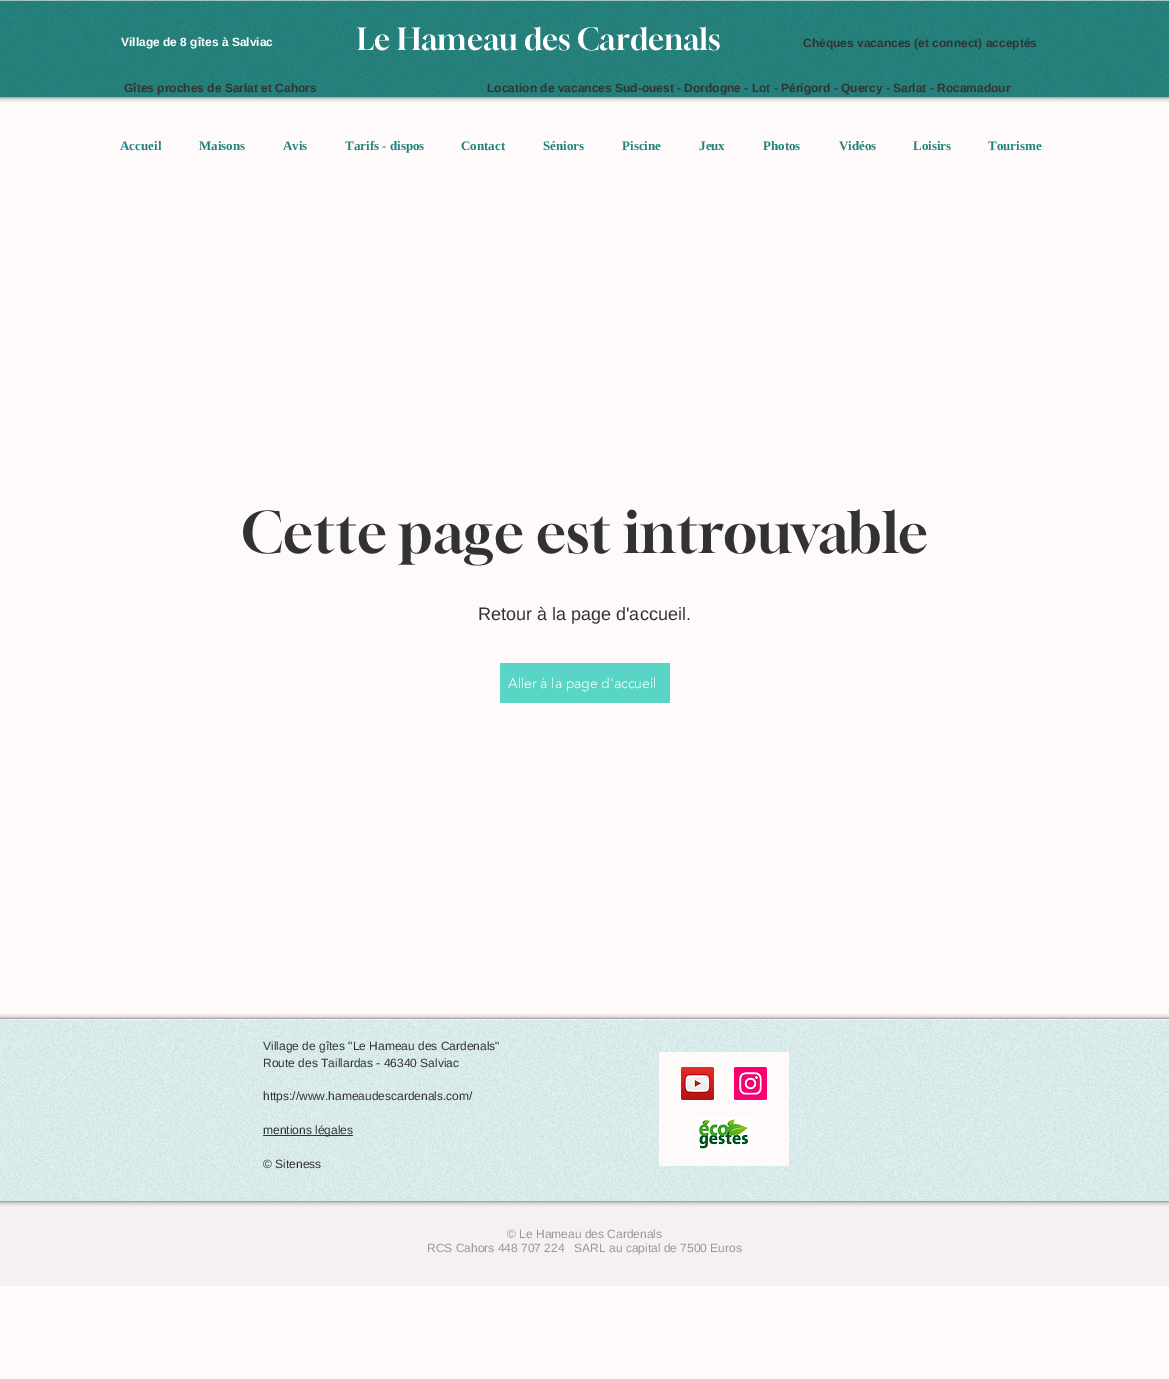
%!PS-Adobe-3.0
%%BoundingBox: 0 0 1169 1379
%%LanguageLevel: 3
%%Pages: 1
%%EndComments
%%BeginProlog
/setalpha { dup .setfillconstantalpha .setstrokeconstantalpha } def
/rrect { 5 dict begin { /r /h /w /y /x } { exch def } forall
  x r add y moveto x w add y 2 copy h add r arct x w add y h add x 1 index r arct
  x y h add x y r arct x y 2 copy exch w add exch r arct closepath end } def
/softshadow { 12 dict begin { /a /b /q /h /w /y /x } { exch def } forall gsave /was 0 def
  9 -2 -9 { dup b mul 4 div /e exch def 1 sub .425 mul 2.718 exch exp 1 add a .99 .min exch div /now exch def
    1 1 now sub 1 was sub div sub setalpha /was now def
    w h .min e 2 mul add 0 gt { x e sub y e sub w e 2 mul add h e 2 mul add
      q e add b .6 mul add w h .min 2 div e add .min 0 .max rrect fill } if } for grestore end } def
/drawimage { 5 dict begin { /h /w /y /x /name } { exch def } forall
  gsave x y translate w h scale
  w h 8 [w 0 0 h 0 0] name (r) file false 3 colorimage grestore end } def
%%EndProlog
%%BeginSetup
<< /PageSize [1169 1379] /PageUsesTransparency true >> setpagedevice
%%EndSetup
%%Page: 1 1
0 .pushpdf14devicefilter
0 1379 translate 1 -1 scale
4 setmiterlimit
0.996 0.98 0.98 setrgbcolor
0 0 1169 1379 rectfill
0.141 0.51 0.49 setrgbcolor
0 1 1169 96 rectfill
0.651 0.8 0.792 setrgbcolor
0 0 1169 1 rectfill
gsave
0 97 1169 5 rectclip
0 setgray
0 0 1169 97 0 2.5 0.7 softshadow
grestore
(images/1.raw) 0 0 1169 97 drawimage
0.345 0.835 0.769 setrgbcolor
500 663 170 40 rectfill
0.871 0.949 0.945 setrgbcolor
0 1020 1169 181 rectfill
0.949 0.98 0.976 setrgbcolor
0 1019 1169 1 rectfill
0.965 0.941 0.941 setrgbcolor
0 1201 1169 85 rectfill
gsave
newpath 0 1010 moveto 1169 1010 lineto 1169 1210 lineto 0 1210 lineto closepath 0 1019 moveto 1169 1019 lineto 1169 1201 lineto 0 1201 lineto closepath eoclip newpath
0 setgray
0 1019 1169 182 0 2.5 0.7 softshadow
grestore
(images/2.raw) 0 1019 1169 182 drawimage
0.2 0.196 0.196 setrgbcolor
263 1135 90 1 rectfill
0.996 0.98 0.98 setrgbcolor
659 1052 130 114 rectfill
(images/3.raw) 681 1067 33 33 drawimage
(images/4.raw) 734 1067 33 33 drawimage
(images/5.raw) 696 1117 55 33 drawimage
/LiberationSans-Bold [12 0 0 -12 0 0] selectfont
1 setgray
121 46 moveto (Village de 8 gîtes à Salviac) show
/Gloock-Regular [30 0 0 -30 0 0] selectfont
357 50 moveto (Le Hameau des Cardenals) show
/LiberationSans-Bold [12 0 0 -12 0 0] selectfont
0.2 0.196 0.196 setrgbcolor
803 47 moveto (Chèques vacances \(et connect\) acceptés) show
124 92 moveto (Gîtes proches de Sarlat et Cahors) show
487 92 moveto (Location de vacances Sud-ouest - Dordogne - Lot - Périgord - Quercy - Sarlat - Rocamadour) show
/LiberationSerif-Bold [13 0 0 -13 0 0] selectfont
0.141 0.51 0.49 setrgbcolor
120 150 moveto (Accueil) show
199 150 moveto (Maisons) show
283 150 moveto (Avis) show
345 150 moveto (Tarifs - dispos) show
461 150 moveto (Contact) show
543 150 moveto (Séniors) show
622 150 moveto (Piscine) show
699 150 moveto (Jeux) show
763 150 moveto (Photos) show
839 150 moveto (Vidéos) show
913 150 moveto (Loisirs) show
988 150 moveto (Tourisme) show
/Gloock-Regular [56 0 0 -56 0 0] selectfont
0.2 0.196 0.196 setrgbcolor
241 553 moveto (Cette page est introuvable) show
/LiberationSans-Regular [18 0 0 -18 0 0] selectfont
478 620 moveto (Retour à la page d'accueil.) show
/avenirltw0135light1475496-Light [14 0 0 -14 0 0] selectfont
1 setgray
508 688 moveto (Aller à la page d'accueil) show
/LiberationSans-Regular [12 0 0 -12 0 0] selectfont
0.2 0.196 0.196 setrgbcolor
263 1050 moveto (Village de gîtes "Le Hameau des Cardenals") show
263 1067 moveto (Route des Taillardas - 46340 Salviac) show
263 1100 moveto (https://www.hameaudescardenals.com/) show
263 1134 moveto (mentions légales) show
263 1168 moveto (© Siteness) show
0.596 0.588 0.588 setrgbcolor
507 1238 moveto (© Le Hameau des Cardenals) show
427 1252 moveto (RCS Cahors 448 707 224   SARL au capital de 7500 Euros) show
.poppdf14devicefilter showpage
%%EOF
